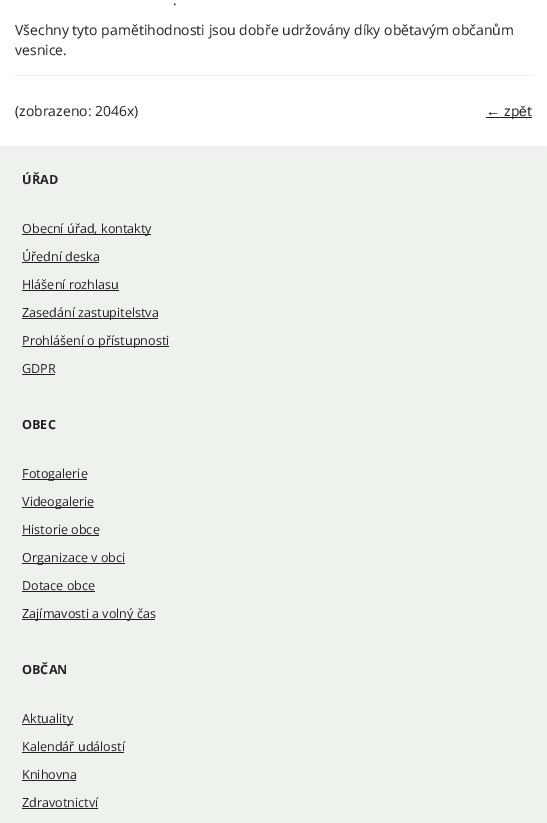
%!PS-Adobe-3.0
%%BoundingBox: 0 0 547 823
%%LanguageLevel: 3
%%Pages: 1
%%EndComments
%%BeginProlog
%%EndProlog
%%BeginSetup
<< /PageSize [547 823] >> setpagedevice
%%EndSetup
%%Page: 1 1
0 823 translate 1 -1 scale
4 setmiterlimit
1 setgray
0 0 547 823 rectfill
0.933 setgray
15 75 517 1 rectfill
0.133 setgray
486 117 46 1 rectfill
0.933 0.949 0.929 setrgbcolor
0 146 547 677 rectfill
0.933 setgray
15 204 517 1 rectfill
0.133 setgray
22 234 129 1 rectfill
22 262 77 1 rectfill
22 290 97 1 rectfill
22 318 136 1 rectfill
22 346 147 1 rectfill
22 374 33 1 rectfill
0.933 setgray
15 449 517 1 rectfill
0.133 setgray
22 479 65 1 rectfill
22 507 72 1 rectfill
22 535 77 1 rectfill
22 563 103 1 rectfill
22 591 73 1 rectfill
22 619 133 1 rectfill
0.933 setgray
15 694 517 1 rectfill
0.133 setgray
22 724 51 1 rectfill
22 752 102 1 rectfill
22 780 54 1 rectfill
22 808 76 1 rectfill
/OpenSans-Regular [14 0 0 -14 0 0] selectfont
173 5 moveto (.) show
15 35 moveto (Všechny tyto pamětihodnosti jsou dobře udržovány díky obětavým občanům) show
15 55 moveto (vesnice.) show
15 116 moveto (\(zobrazeno: 2046x\)) show
/LiberationSans-Regular [14 0 0 -14 0 0] selectfont
486 116 moveto (←) show
/OpenSans-Regular [14 0 0 -14 0 0] selectfont
504 116 moveto (zp) show
/LiberationSans-Regular [14 0 0 -14 0 0] selectfont
519 116 moveto (ě) show
/OpenSans-Regular [14 0 0 -14 0 0] selectfont
527 116 moveto (t) show
/OpenSans-Bold [12.6 0 0 -12.6 0 0] selectfont
22 184 moveto (ÚŘAD) show
/OpenSans-Regular [12.6 0 0 -12.6 0 0] selectfont
22 233 moveto (Obecní úřad, kontakty) show
22 261 moveto (Úřední deska) show
22 289 moveto (Hlášení rozhlasu) show
22 317 moveto (Zasedání zastupitelstva) show
22 345 moveto (Prohlášení o přístupnosti) show
22 373 moveto (GDPR) show
/OpenSans-Bold [12.6 0 0 -12.6 0 0] selectfont
22 429 moveto (OBEC) show
/OpenSans-Regular [12.6 0 0 -12.6 0 0] selectfont
22 478 moveto (Fotogalerie) show
22 506 moveto (Videogalerie) show
22 534 moveto (Historie obce) show
22 562 moveto (Organizace v obci) show
22 590 moveto (Dotace obce) show
22 618 moveto (Zajímavosti a volný čas) show
/OpenSans-Bold [12.6 0 0 -12.6 0 0] selectfont
22 674 moveto (OBČAN) show
/OpenSans-Regular [12.6 0 0 -12.6 0 0] selectfont
22 723 moveto (Aktuality) show
22 751 moveto (Kalendář událostí) show
22 779 moveto (Knihovna) show
22 807 moveto (Zdravotnictví) show
showpage
%%EOF
